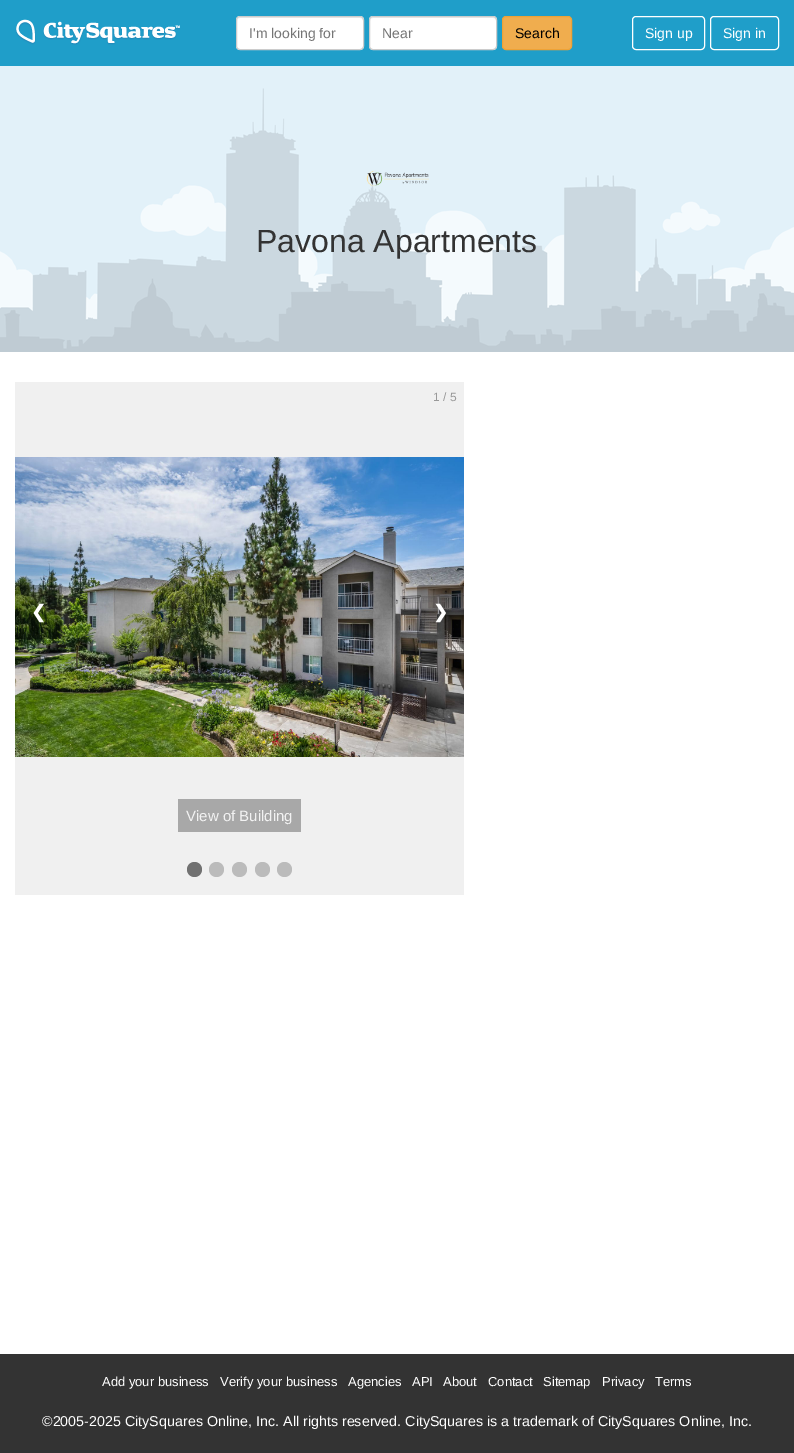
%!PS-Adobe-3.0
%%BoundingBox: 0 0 794 1453
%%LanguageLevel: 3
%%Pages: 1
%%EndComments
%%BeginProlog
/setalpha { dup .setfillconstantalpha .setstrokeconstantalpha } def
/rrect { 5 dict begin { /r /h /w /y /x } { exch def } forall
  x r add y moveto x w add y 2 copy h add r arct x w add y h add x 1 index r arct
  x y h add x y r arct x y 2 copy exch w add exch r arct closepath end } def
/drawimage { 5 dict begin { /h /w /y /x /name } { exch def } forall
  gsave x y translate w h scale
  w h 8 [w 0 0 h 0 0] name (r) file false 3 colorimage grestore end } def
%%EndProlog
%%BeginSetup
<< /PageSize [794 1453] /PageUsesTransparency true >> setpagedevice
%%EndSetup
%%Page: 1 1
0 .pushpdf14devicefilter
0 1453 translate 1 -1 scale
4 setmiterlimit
1 setgray
0 0 794 1453 rectfill
0.122 0.62 0.788 setrgbcolor
0 0 794 66 rectfill
(images/1.raw) 15 19 165 26 drawimage
1 setgray
236 16 128 34 4 rrect fill
0.925 setgray
newpath 240 18 moveto 360 18 lineto 362 18 363 19 363 21 curveto 363 19 363 17 361 17 curveto 240 17 lineto 238 17 237 19 237 21 curveto 237 19 238 18 240 18 curveto closepath fill
0.8 setgray
236.5 16.5 127 33 3.5 rrect stroke
1 setgray
369 16 128 34 4 rrect fill
0.925 setgray
newpath 373 18 moveto 493 18 lineto 495 18 496 19 496 21 curveto 496 19 496 17 494 17 curveto 373 17 lineto 371 17 370 19 370 21 curveto 370 19 371 18 373 18 curveto closepath fill
0.8 setgray
369.5 16.5 127 33 3.5 rrect stroke
0.941 0.678 0.306 setrgbcolor
502.5 16.5 69 33 3.5 rrect gsave fill grestore
0.933 0.635 0.212 setrgbcolor
stroke
1 setgray
632.5 16.5 72 33 3.5 rrect stroke
710.5 16.5 68 33 3.5 rrect stroke
0.886 0.945 0.976 setrgbcolor
0 66 794 22 rectfill
(images/2.raw) 0 88 794 264 drawimage
(images/3.raw) 366 170 63 17 drawimage
0.941 setgray
15 382 449 513 rectfill
(images/4.raw) 15 457 449 300 drawimage
0.3 setalpha
0 setgray
newpath 15 585 moveto 59 585 lineto 60.5 585 62 586.5 62 588 curveto 62 636 lineto 62 637.5 60.5 639 59 639 curveto 15 639 lineto closepath fill
1 setalpha
0.659 setgray
178 799 123 33 rectfill
0.3 setalpha
0 setgray
newpath 420 585 moveto 464 585 lineto 464 639 lineto 420 639 lineto 418.5 639 417 637.5 417 636 curveto 417 588 lineto 417 586.5 418.5 585 420 585 curveto closepath fill
1 setalpha
0.443 setgray
newpath 194.5 869.5 7.5 0 360 arc closepath fill
0.733 setgray
newpath 216.5 869.5 7.5 0 360 arc closepath fill
newpath 239.5 869.5 7.5 0 360 arc closepath fill
newpath 262.5 869.5 7.5 0 360 arc closepath fill
newpath 284.5 869.5 7.5 0 360 arc closepath fill
0.2 setgray
0 1354 794 99 rectfill
/LiberationSans-Regular [14 0 0 -14 0 0] selectfont
0.459 setgray
249 38 moveto (I'm looking for) show
382 38 moveto (Near) show
0 setgray
515 38 moveto (Search) show
1 setgray
645 38 moveto (Sign up) show
723 38 moveto (Sign in) show
/LiberationSans-Regular [32 0 0 -32 0 0] selectfont
0.2 setgray
256 252 moveto (Pavona Apartments) show
/DejaVuSans-Bold [18 0 0 -18 0 0] selectfont
1 setgray
31 618 moveto (❮) show
/LiberationSans-Regular [12 0 0 -12 0 0] selectfont
0.6 setgray
433 401 moveto (1 / 5) show
/LiberationSans-Regular [15 0 0 -15 0 0] selectfont
0.949 setgray
186 821 moveto (View of Building) show
/DejaVuSans-Bold [18 0 0 -18 0 0] selectfont
1 setgray
433 618 moveto (❯) show
/LiberationSans-Regular [13 0 0 -13 0 0] selectfont
102 1386 moveto (Add your business) show
220 1386 moveto (Verify your business) show
348 1386 moveto (Agencies) show
412 1386 moveto (API) show
443 1386 moveto (About) show
488 1386 moveto (Contact) show
543 1386 moveto (Sitemap) show
602 1386 moveto (Privacy) show
655 1386 moveto (Terms) show
/LiberationSans-Regular [14.3 0 0 -14.3 0 0] selectfont
42 1426 moveto (©2005-2025 CitySquares Online, Inc. All rights reserved. CitySquares is a trademark of CitySquares Online, Inc.) show
.poppdf14devicefilter showpage
%%EOF
